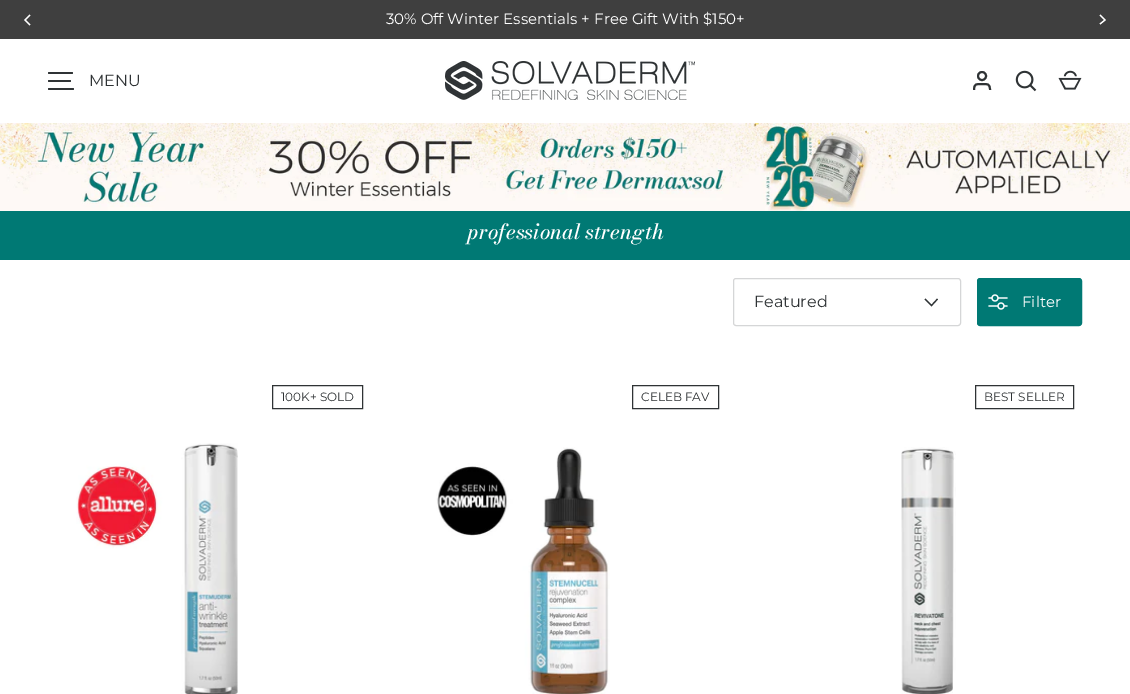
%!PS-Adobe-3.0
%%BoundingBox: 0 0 1130 694
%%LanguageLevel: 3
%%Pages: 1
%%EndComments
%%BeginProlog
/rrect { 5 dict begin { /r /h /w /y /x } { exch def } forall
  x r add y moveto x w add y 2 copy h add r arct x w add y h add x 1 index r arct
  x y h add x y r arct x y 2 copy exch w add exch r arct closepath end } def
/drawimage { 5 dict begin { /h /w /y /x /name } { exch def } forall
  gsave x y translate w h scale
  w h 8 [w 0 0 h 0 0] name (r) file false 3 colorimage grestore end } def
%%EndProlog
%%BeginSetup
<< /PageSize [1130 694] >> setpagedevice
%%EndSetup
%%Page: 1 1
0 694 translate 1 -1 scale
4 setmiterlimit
1 setgray
0 0 1130 694 rectfill
0.247 setgray
0 0 1130 39 rectfill
1 setgray
1.2 setlinewidth
newpath 30 15 moveto 25 20 lineto 30 25 lineto stroke
newpath 1100 15 moveto 1105 20 lineto 1100 24 lineto stroke
0.184 0.2 0.208 setrgbcolor
48 72 25 2 1 rrect fill
48 80 23 2 1 rrect fill
48 88 26 2 1 rrect fill
(images/1.raw) 445 61 250 39 drawimage
2 setlinewidth
newpath 982 76 4 0 360 arc closepath stroke
newpath 990 90 moveto 990 83.5 987.5 84 982 84 curveto 976.5 84 974 83.5 974 90 curveto stroke
(images/2.raw) 1015 70 22 22 drawimage
(images/3.raw) 1058 70 24 20 drawimage
(images/4.raw) 0 123 1130 88 drawimage
0 0.475 0.455 setrgbcolor
0 211 1130 49 rectfill
0.835 0.839 0.843 setrgbcolor
1 setlinewidth
733.5 278.5 227 47 2.5 rrect stroke
0.184 0.2 0.208 setrgbcolor
1.2 setlinewidth
newpath 937.5 299 moveto 931.5 305.5 lineto 925 299 lineto stroke
0 0.475 0.455 setrgbcolor
977.5 278.5 104 47 2.5 rrect gsave fill grestore
1 setlinewidth
stroke
(images/5.raw) 988 294 20 16 drawimage
0.184 0.2 0.208 setrgbcolor
272.5 385.5 90 23 rectstroke
(images/6.raw) 76 443 162 251 drawimage
632.5 385.5 86 23 rectstroke
(images/7.raw) 436 447 174 247 drawimage
975.5 385.5 98 23 rectstroke
(images/8.raw) 901 447 55 247 drawimage
/Montserrat-Regular [15 0 0 -15 0 0] selectfont
1 setgray
386 24 moveto (30% Off Winter Essentials + Free Gift With $150+) show
/Montserrat-Regular [16 0 0 -16 0 0] selectfont
0.184 0.2 0.208 setrgbcolor
89 86 moveto (MENU) show
/BodoniModa-MediumItalic [21 0 0 -21 0 0] selectfont
1 setgray
467 239 moveto (professional strength) show
/Montserrat-Regular [16 0 0 -16 0 0] selectfont
0.184 0.2 0.208 setrgbcolor
754 307 moveto (Featured) show
/Montserrat-Regular [15 0 0 -15 0 0] selectfont
1 setgray
1022 307 moveto (Filter) show
/Montserrat-Regular [12 0 0 -12 0 0] selectfont
0.184 0.2 0.208 setrgbcolor
281 401 moveto (100K+ SOLD) show
641 401 moveto (CELEB FAV) show
984 401 moveto (BEST SELLER) show
showpage
%%EOF
